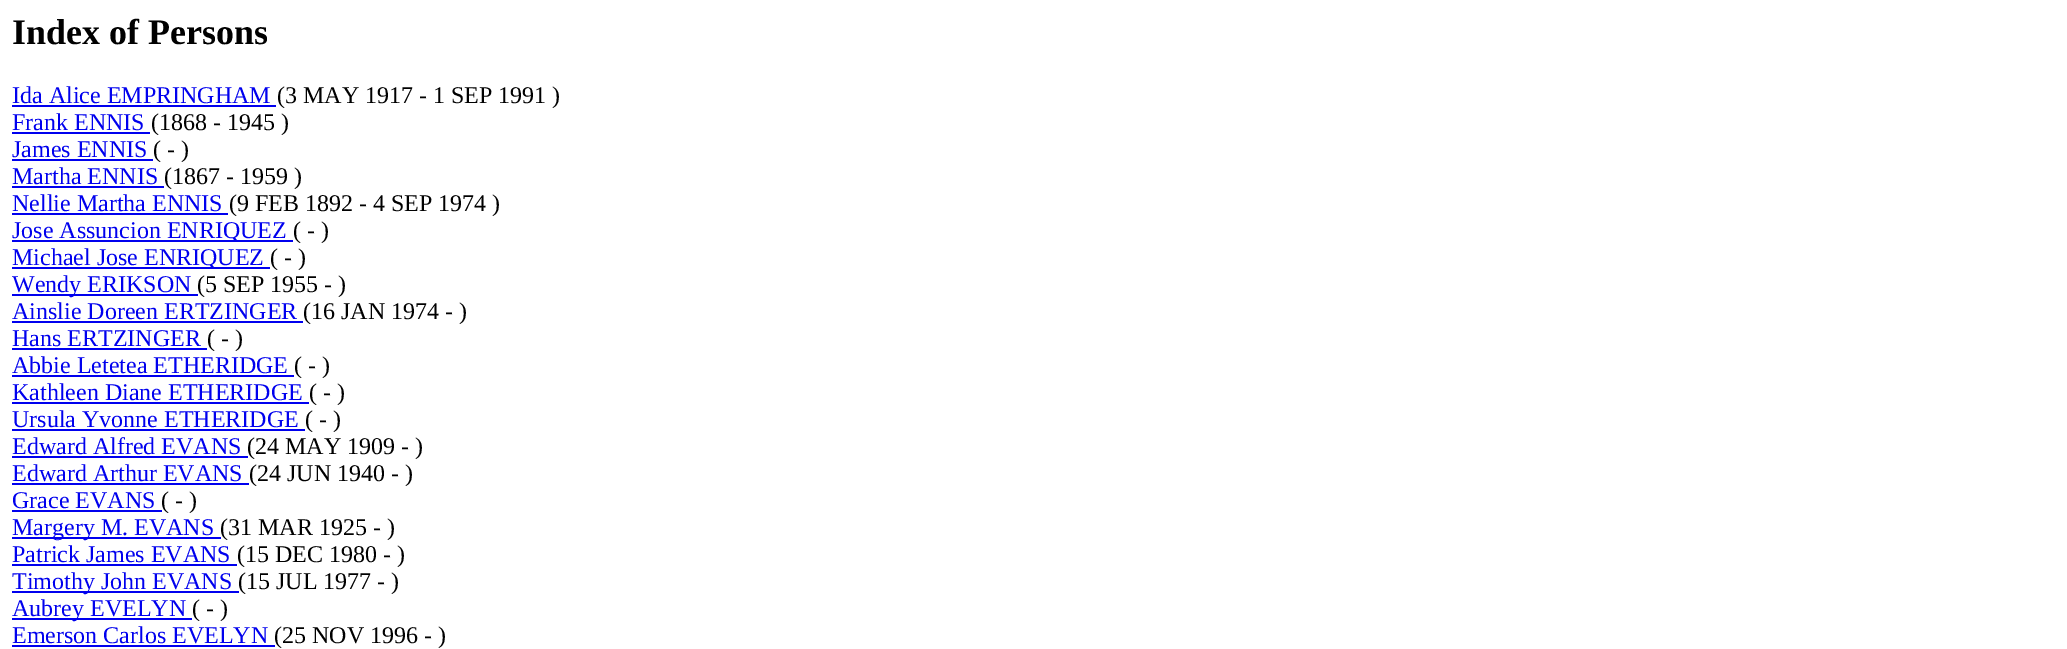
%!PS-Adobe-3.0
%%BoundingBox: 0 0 2067 649
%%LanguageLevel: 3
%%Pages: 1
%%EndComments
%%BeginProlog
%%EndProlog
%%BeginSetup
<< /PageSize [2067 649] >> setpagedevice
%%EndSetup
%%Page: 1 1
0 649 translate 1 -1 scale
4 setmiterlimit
1 setgray
0 0 2067 649 rectfill
0 0 0.933 setrgbcolor
12 105 264 2 rectfill
12 132 138 2 rectfill
12 159 141 2 rectfill
12 186 152 2 rectfill
12 213 216 2 rectfill
12 240 281 2 rectfill
12 267 258 2 rectfill
12 294 186 2 rectfill
12 321 291 2 rectfill
12 348 195 2 rectfill
12 375 282 2 rectfill
12 402 297 2 rectfill
12 429 293 2 rectfill
12 456 236 2 rectfill
12 483 237 2 rectfill
12 510 150 2 rectfill
12 537 209 2 rectfill
12 564 225 2 rectfill
12 591 227 2 rectfill
12 618 180 2 rectfill
12 645 263 2 rectfill
/LiberationSerif-Bold [36 0 0 -36 0 0] selectfont
0 setgray
12 44 moveto (Index of Persons) show
/LiberationSerif-Regular [24 0 0 -24 0 0] selectfont
0 0 0.933 setrgbcolor
12 103 moveto (Ida Alice EMPRINGHAM) show
0 setgray
277 103 moveto (\(3 MAY 1917 - 1 SEP 1991 \)) show
0 0 0.933 setrgbcolor
12 130 moveto (Frank ENNIS) show
0 setgray
151 130 moveto (\(1868 - 1945 \)) show
0 0 0.933 setrgbcolor
12 157 moveto (James ENNIS) show
0 setgray
153 157 moveto (\( - \)) show
0 0 0.933 setrgbcolor
12 184 moveto (Martha ENNIS) show
0 setgray
164 184 moveto (\(1867 - 1959 \)) show
0 0 0.933 setrgbcolor
12 211 moveto (Nellie Martha ENNIS) show
0 setgray
229 211 moveto (\(9 FEB 1892 - 4 SEP 1974 \)) show
0 0 0.933 setrgbcolor
12 238 moveto (Jose Assuncion ENRIQUEZ) show
0 setgray
293 238 moveto (\( - \)) show
0 0 0.933 setrgbcolor
12 265 moveto (Michael Jose ENRIQUEZ) show
0 setgray
270 265 moveto (\( - \)) show
0 0 0.933 setrgbcolor
12 292 moveto (Wendy ERIKSON) show
0 setgray
197 292 moveto (\(5 SEP 1955 - \)) show
0 0 0.933 setrgbcolor
12 319 moveto (Ainslie Doreen ERTZINGER) show
0 setgray
303 319 moveto (\(16 JAN 1974 - \)) show
0 0 0.933 setrgbcolor
12 346 moveto (Hans ERTZINGER) show
0 setgray
207 346 moveto (\( - \)) show
0 0 0.933 setrgbcolor
12 373 moveto (Abbie Letetea ETHERIDGE) show
0 setgray
294 373 moveto (\( - \)) show
0 0 0.933 setrgbcolor
12 400 moveto (Kathleen Diane ETHERIDGE) show
0 setgray
309 400 moveto (\( - \)) show
0 0 0.933 setrgbcolor
12 427 moveto (Ursula Yvonne ETHERIDGE) show
0 setgray
305 427 moveto (\( - \)) show
0 0 0.933 setrgbcolor
12 454 moveto (Edward Alfred EVANS) show
0 setgray
247 454 moveto (\(24 MAY 1909 - \)) show
0 0 0.933 setrgbcolor
12 481 moveto (Edward Arthur EVANS) show
0 setgray
249 481 moveto (\(24 JUN 1940 - \)) show
0 0 0.933 setrgbcolor
12 508 moveto (Grace EVANS) show
0 setgray
161 508 moveto (\( - \)) show
0 0 0.933 setrgbcolor
12 535 moveto (Margery M. EVANS) show
0 setgray
220 535 moveto (\(31 MAR 1925 - \)) show
0 0 0.933 setrgbcolor
12 562 moveto (Patrick James EVANS) show
0 setgray
237 562 moveto (\(15 DEC 1980 - \)) show
0 0 0.933 setrgbcolor
12 589 moveto (Timothy John EVANS) show
0 setgray
238 589 moveto (\(15 JUL 1977 - \)) show
0 0 0.933 setrgbcolor
12 616 moveto (Aubrey EVELYN) show
0 setgray
192 616 moveto (\( - \)) show
0 0 0.933 setrgbcolor
12 643 moveto (Emerson Carlos EVELYN) show
0 setgray
274 643 moveto (\(25 NOV 1996 - \)) show
showpage
%%EOF
